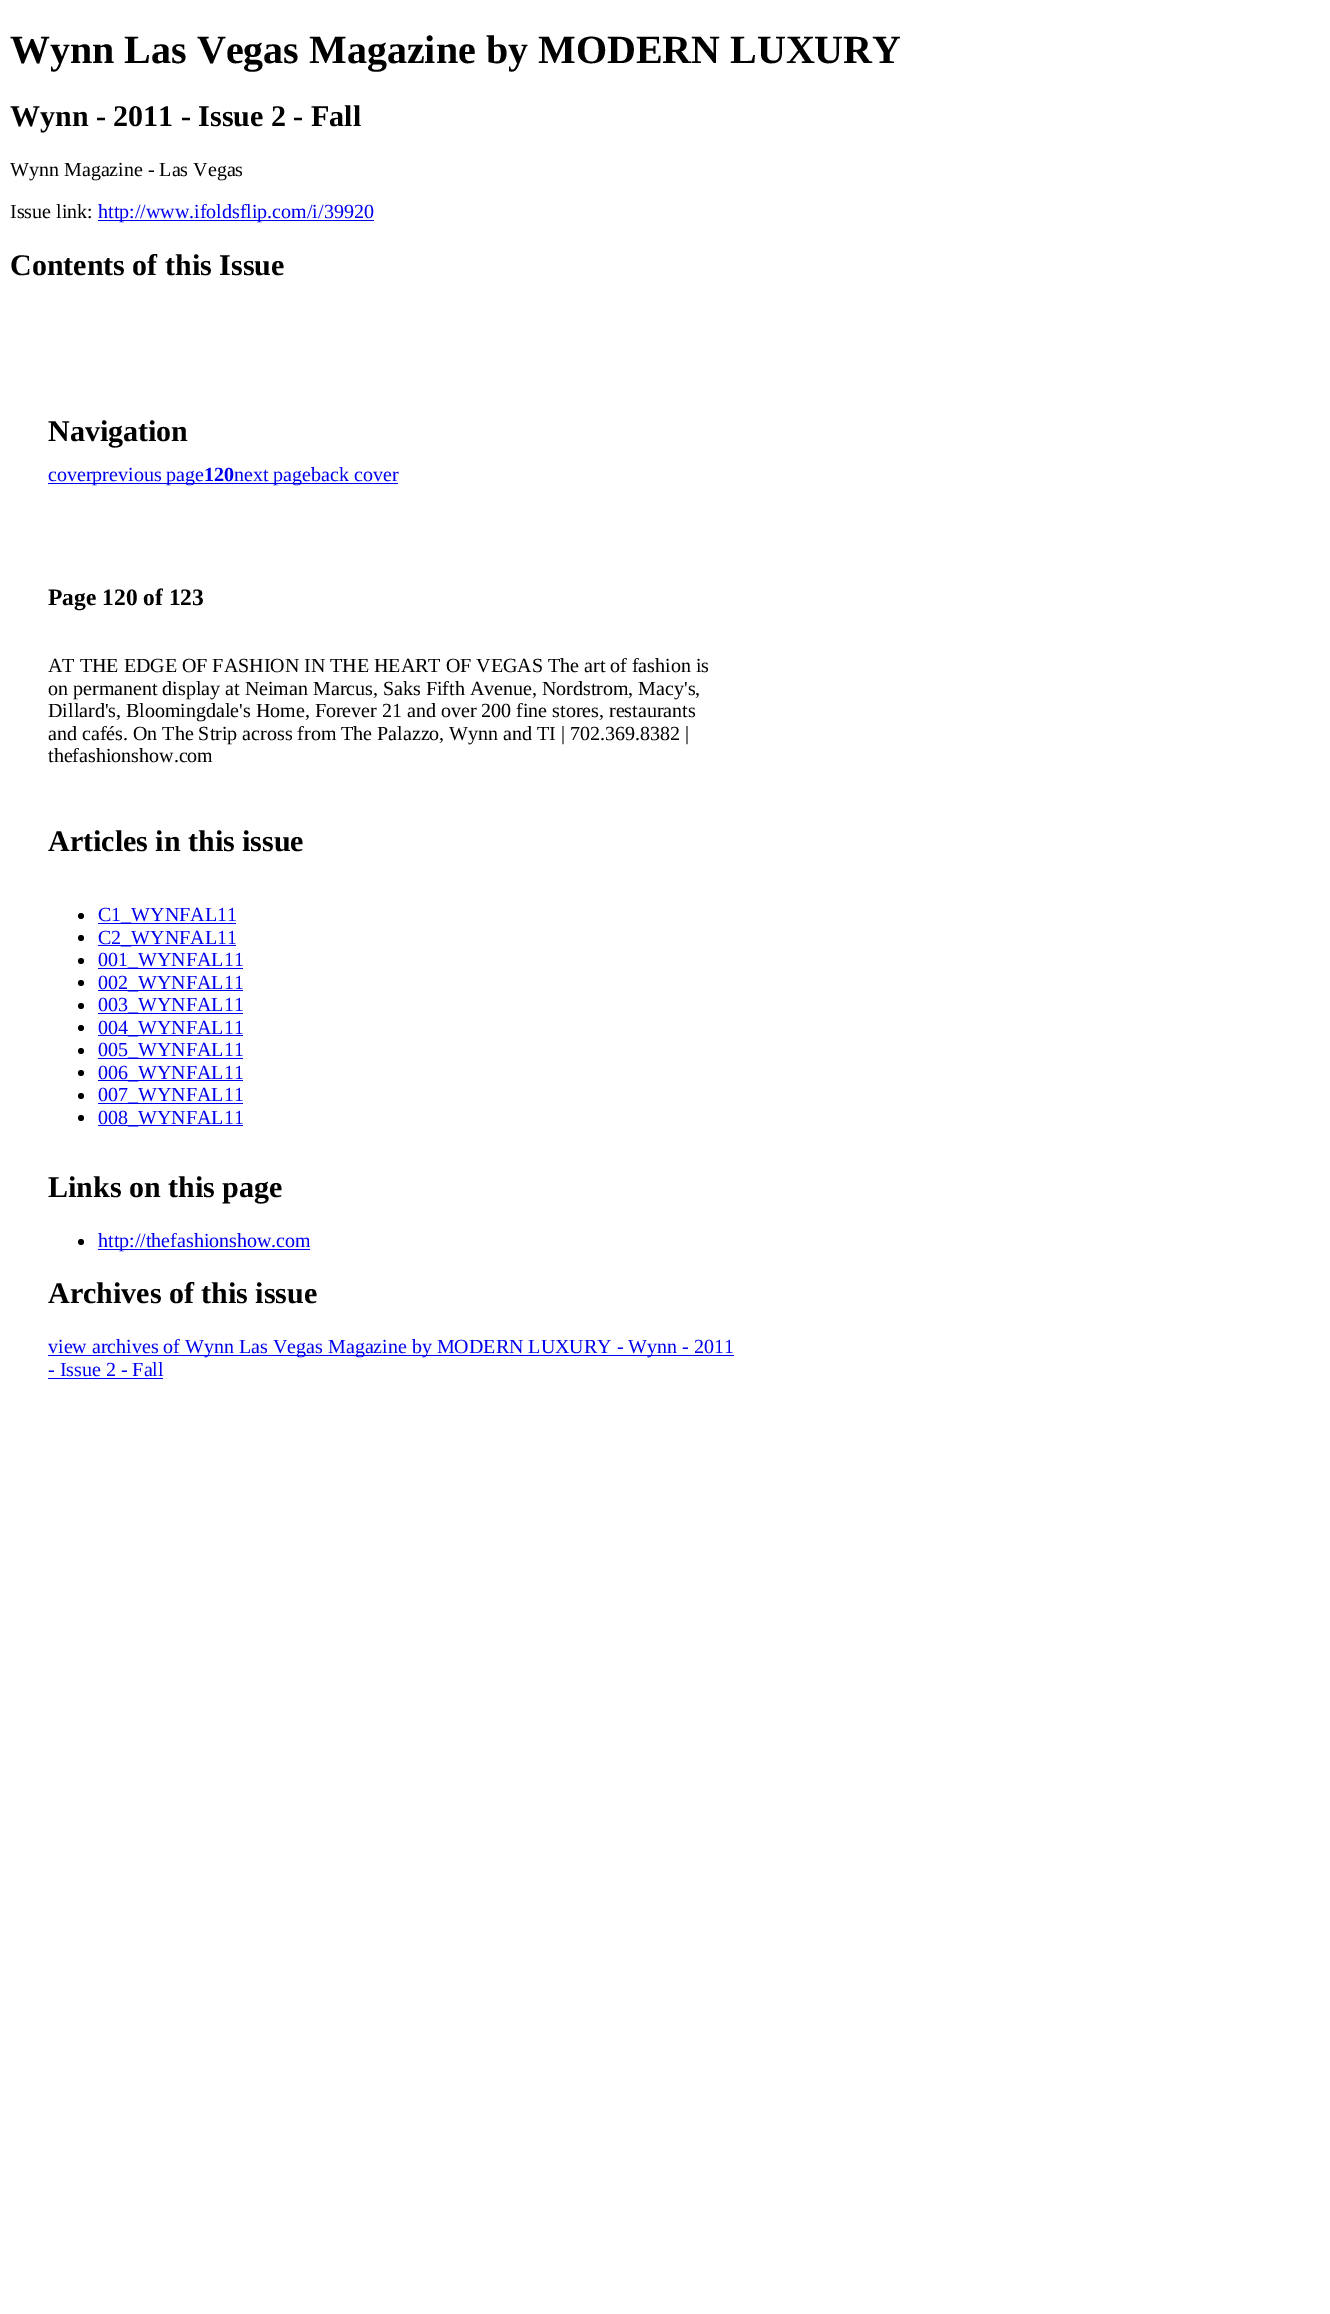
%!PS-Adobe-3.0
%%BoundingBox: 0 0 1330 2314
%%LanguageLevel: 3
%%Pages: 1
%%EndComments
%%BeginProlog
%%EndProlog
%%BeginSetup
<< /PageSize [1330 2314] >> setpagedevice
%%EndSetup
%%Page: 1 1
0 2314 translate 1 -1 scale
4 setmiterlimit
1 setgray
0 0 1330 2314 rectfill
0 0 0.933 setrgbcolor
98 220 276 1 rectfill
48 483 350 1 rectfill
0 setgray
newpath 81 916 3 0 360 arc closepath fill
0 0 0.933 setrgbcolor
98 923 138 1 rectfill
0 setgray
newpath 81 938 3 0 360 arc closepath fill
0 0 0.933 setrgbcolor
98 945 138 1 rectfill
0 setgray
newpath 81 961 3 0 360 arc closepath fill
0 0 0.933 setrgbcolor
98 968 145 1 rectfill
0 setgray
newpath 81 983 3 0 360 arc closepath fill
0 0 0.933 setrgbcolor
98 990 145 1 rectfill
0 setgray
newpath 81 1006 3 0 360 arc closepath fill
0 0 0.933 setrgbcolor
98 1013 145 1 rectfill
0 setgray
newpath 81 1028 3 0 360 arc closepath fill
0 0 0.933 setrgbcolor
98 1035 145 1 rectfill
0 setgray
newpath 81 1051 3 0 360 arc closepath fill
0 0 0.933 setrgbcolor
98 1058 145 1 rectfill
0 setgray
newpath 81 1073 3 0 360 arc closepath fill
0 0 0.933 setrgbcolor
98 1080 145 1 rectfill
0 setgray
newpath 81 1096 3 0 360 arc closepath fill
0 0 0.933 setrgbcolor
98 1103 145 1 rectfill
0 setgray
newpath 81 1118 3 0 360 arc closepath fill
0 0 0.933 setrgbcolor
98 1125 145 1 rectfill
0 setgray
newpath 81 1242 3 0 360 arc closepath fill
0 0 0.933 setrgbcolor
98 1249 212 1 rectfill
48 1355 686 1 rectfill
48 1378 115 1 rectfill
/LiberationSerif-Bold [40 0 0 -40 0 0] selectfont
0 setgray
10 63 moveto (Wynn Las Vegas Magazine by MODERN LUXURY) show
/LiberationSerif-Bold [30 0 0 -30 0 0] selectfont
10 126 moveto (Wynn - 2011 - Issue 2 - Fall) show
/LiberationSerif-Regular [20 0 0 -20 0 0] selectfont
10 176 moveto (Wynn Magazine - Las Vegas) show
10 218 moveto (Issue link:) show
0 0 0.933 setrgbcolor
98 218 moveto (http://www.ifoldsflip.com/i/39920) show
/LiberationSerif-Bold [30 0 0 -30 0 0] selectfont
0 setgray
10 275 moveto (Contents of this Issue) show
48 441 moveto (Navigation) show
/LiberationSerif-Regular [20 0 0 -20 0 0] selectfont
0 0 0.933 setrgbcolor
48 481 moveto (coverprevious page) show
/LiberationSerif-Bold [20 0 0 -20 0 0] selectfont
204 481 moveto (120) show
/LiberationSerif-Regular [20 0 0 -20 0 0] selectfont
234 481 moveto (next pageback cover) show
/LiberationSerif-Bold [23.5 0 0 -23.5 0 0] selectfont
0 setgray
48 605 moveto (Page 120 of 123) show
/LiberationSerif-Regular [20 0 0 -20 0 0] selectfont
48 672 moveto (AT THE EDGE OF FASHION IN THE HEART OF VEGAS The art of fashion is) show
48 695 moveto (on permanent display at Neiman Marcus, Saks Fifth Avenue, Nordstrom, Macy's,) show
48 717 moveto (Dillard's, Bloomingdale's Home, Forever 21 and over 200 fine stores, restaurants) show
48 740 moveto (and cafés. On The Strip across from The Palazzo, Wynn and TI | 702.369.8382 |) show
48 762 moveto (thefashionshow.com) show
/LiberationSerif-Bold [30 0 0 -30 0 0] selectfont
48 851 moveto (Articles in this issue) show
/LiberationSerif-Regular [20 0 0 -20 0 0] selectfont
0 0 0.933 setrgbcolor
98 921 moveto (C1_WYNFAL11) show
98 944 moveto (C2_WYNFAL11) show
98 966 moveto (001_WYNFAL11) show
98 989 moveto (002_WYNFAL11) show
98 1011 moveto (003_WYNFAL11) show
98 1034 moveto (004_WYNFAL11) show
98 1056 moveto (005_WYNFAL11) show
98 1079 moveto (006_WYNFAL11) show
98 1101 moveto (007_WYNFAL11) show
98 1124 moveto (008_WYNFAL11) show
/LiberationSerif-Bold [30 0 0 -30 0 0] selectfont
0 setgray
48 1197 moveto (Links on this page) show
/LiberationSerif-Regular [20 0 0 -20 0 0] selectfont
0 0 0.933 setrgbcolor
98 1247 moveto (http://thefashionshow.com) show
/LiberationSerif-Bold [30 0 0 -30 0 0] selectfont
0 setgray
48 1303 moveto (Archives of this issue) show
/LiberationSerif-Regular [20 0 0 -20 0 0] selectfont
0 0 0.933 setrgbcolor
48 1353 moveto (view archives of Wynn Las Vegas Magazine by MODERN LUXURY - Wynn - 2011) show
48 1376 moveto (- Issue 2 - Fall) show
showpage
%%EOF
